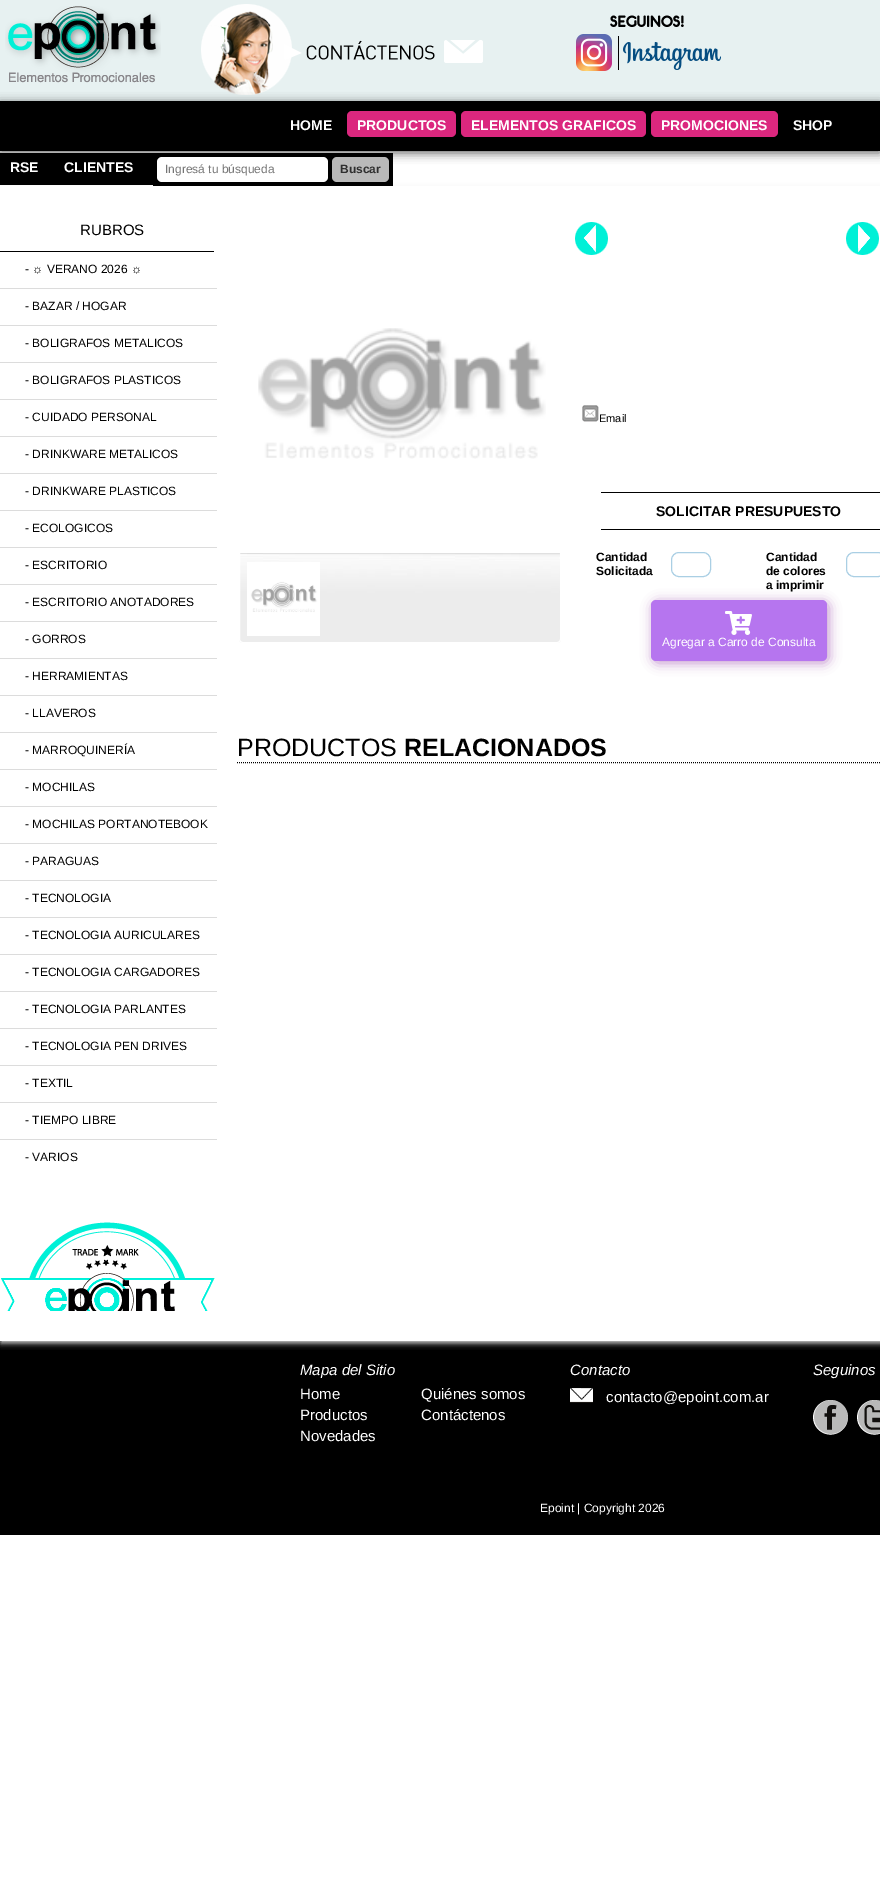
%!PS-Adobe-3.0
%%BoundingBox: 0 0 880 1901
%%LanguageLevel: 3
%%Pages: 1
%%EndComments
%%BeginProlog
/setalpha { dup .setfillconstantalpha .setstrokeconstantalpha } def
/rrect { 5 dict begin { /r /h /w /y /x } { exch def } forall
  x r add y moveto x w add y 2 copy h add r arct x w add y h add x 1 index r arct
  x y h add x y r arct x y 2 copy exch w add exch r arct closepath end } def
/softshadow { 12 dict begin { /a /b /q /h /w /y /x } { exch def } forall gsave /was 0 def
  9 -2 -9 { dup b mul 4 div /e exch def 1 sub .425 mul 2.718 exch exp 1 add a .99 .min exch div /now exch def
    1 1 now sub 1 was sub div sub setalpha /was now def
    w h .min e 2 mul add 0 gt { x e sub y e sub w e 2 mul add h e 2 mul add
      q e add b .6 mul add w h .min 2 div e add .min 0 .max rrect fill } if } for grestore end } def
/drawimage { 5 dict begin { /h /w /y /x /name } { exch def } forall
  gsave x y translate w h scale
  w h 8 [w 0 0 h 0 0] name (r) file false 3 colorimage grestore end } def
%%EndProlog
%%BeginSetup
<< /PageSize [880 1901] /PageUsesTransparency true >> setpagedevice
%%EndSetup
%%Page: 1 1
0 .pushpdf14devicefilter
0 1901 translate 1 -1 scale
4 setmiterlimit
1 setgray
0 0 880 1901 rectfill
0.906 0.945 0.945 setrgbcolor
0 0 880 101 rectfill
(images/1.raw) 5 6 156 77 drawimage
(images/2.raw) 201 4 282 91 drawimage
(images/3.raw) 576 15 145 56 drawimage
0 setgray
0 103 880 50 0 5 0.63 softshadow
0 101 880 50 rectfill
0.859 0.153 0.494 setrgbcolor
347 111 109 26 5 rrect fill
461 111 185 26 5 rrect fill
651 111 127 26 5 rrect fill
0 setgray
0 1341 880 194 rectfill
gsave
newpath 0 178 moveto 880 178 lineto 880 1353 lineto 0 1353 lineto closepath 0 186 moveto 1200 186 lineto 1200 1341 lineto 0 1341 lineto closepath eoclip newpath
0.925 setgray
1 188 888 1155 0 3 1 softshadow
grestore
0 153 153 32 rectfill
153 153 240 33 rectfill
1 setgray
157 157 171 25 5 rrect fill
0.725 setgray
332 157 57 25 5 rrect fill
0 setgray
0 251 214 1 rectfill
0.863 setgray
0 288 217 1 rectfill
0 325 217 1 rectfill
0 362 217 1 rectfill
0 399 217 1 rectfill
0 436 217 1 rectfill
0 473 217 1 rectfill
0 510 217 1 rectfill
0 547 217 1 rectfill
0 584 217 1 rectfill
0 621 217 1 rectfill
0 658 217 1 rectfill
0 695 217 1 rectfill
0 732 217 1 rectfill
0 769 217 1 rectfill
0 806 217 1 rectfill
0 843 217 1 rectfill
0 880 217 1 rectfill
0 917 217 1 rectfill
0 954 217 1 rectfill
0 991 217 1 rectfill
0 1028 217 1 rectfill
0 1065 217 1 rectfill
0 1102 217 1 rectfill
0 1139 217 1 rectfill
(images/4.raw) 1 1222 214 89 drawimage
(images/5.raw) 239 553 322 90 drawimage
1 setgray
newpath 239.5 231.5 moveto 560.5 231.5 lineto 560.5 639 lineto 560.5 641 559 642.5 557 642.5 curveto 243 642.5 lineto 241 642.5 239.5 641 239.5 639 curveto closepath stroke
(images/6.raw) 258 328 288 131 drawimage
(images/7.raw) 247 562 73 74 drawimage
(images/8.raw) 575 222 304 33 drawimage
(images/9.raw) 582 405 17 17 drawimage
0 setgray
601 492 279 1 rectfill
601 529 279 1 rectfill
0.667 0.812 0.894 setrgbcolor
671.5 552.5 39 24 7.5 rrect stroke
846.5 552.5 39 24 7.5 rrect stroke
0.761 0.569 0.804 setrgbcolor
653 602 176 61 5 6 1 softshadow
0.714 0.459 0.937 setrgbcolor
651 600 176 61 5 rrect fill
(images/10.raw) 725 611 27 24 drawimage
0 setgray
[1 1] 0 setdash
newpath 237 762.5 moveto 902 762.5 lineto stroke
(images/11.raw) 570 1388 23 15 drawimage
(images/12.raw) 813 1400 35 35 drawimage
(images/13.raw) 857 1400 23 35 drawimage
/LiberationSans-Bold [14 0 0 -14 0 0] selectfont
1 setgray
290 130 moveto (HOME) show
357 130 moveto (PRODUCTOS) show
471 130 moveto (ELEMENTOS GRAFICOS) show
661 130 moveto (PROMOCIONES) show
793 130 moveto (SHOP) show
10 172 moveto (RSE) show
64 172 moveto (CLIENTES) show
/LiberationSans-Regular [12 0 0 -12 0 0] selectfont
0.459 setgray
165 173 moveto (Ingresá tu búsqueda) show
/LiberationSans-Bold [12 0 0 -12 0 0] selectfont
0.184 setgray
340 173 moveto (Buscar) show
/LiberationSans-Regular [15 0 0 -15 0 0] selectfont
0 setgray
80 235 moveto (RUBROS) show
/LiberationSans-Regular [12 0 0 -12 0 0] selectfont
25 273 moveto (- ☼ VERANO 2026 ☼) show
25 310 moveto (- BAZAR / HOGAR) show
25 347 moveto (- BOLIGRAFOS METALICOS) show
25 384 moveto (- BOLIGRAFOS PLASTICOS) show
25 421 moveto (- CUIDADO PERSONAL) show
25 458 moveto (- DRINKWARE METALICOS) show
25 495 moveto (- DRINKWARE PLASTICOS) show
25 532 moveto (- ECOLOGICOS) show
25 569 moveto (- ESCRITORIO) show
25 606 moveto (- ESCRITORIO ANOTADORES) show
25 643 moveto (- GORROS) show
25 680 moveto (- HERRAMIENTAS) show
25 717 moveto (- LLAVEROS) show
25 754 moveto (- MARROQUINERÍA) show
25 791 moveto (- MOCHILAS) show
25 828 moveto (- MOCHILAS PORTANOTEBOOK) show
25 865 moveto (- PARAGUAS) show
25 902 moveto (- TECNOLOGIA) show
25 939 moveto (- TECNOLOGIA AURICULARES) show
25 976 moveto (- TECNOLOGIA CARGADORES) show
25 1013 moveto (- TECNOLOGIA PARLANTES) show
25 1050 moveto (- TECNOLOGIA PEN DRIVES) show
25 1087 moveto (- TEXTIL) show
25 1124 moveto (- TIEMPO LIBRE) show
25 1161 moveto (- VARIOS) show
/LiberationSans-Regular [11 0 0 -11 0 0] selectfont
599 422 moveto (Email) show
/LiberationSans-Bold [14 0 0 -14 0 0] selectfont
656 516 moveto (SOLICITAR PRESUPUESTO) show
/LiberationSans-Bold [12 0 0 -12 0 0] selectfont
596 561 moveto (Cantidad) show
596 575 moveto (Solicitada) show
766 561 moveto (Cantidad) show
766 575 moveto (de colores) show
766 589 moveto (a imprimir) show
/LiberationSans-Regular [12 0 0 -12 0 0] selectfont
1 setgray
662 646 moveto (Agregar a Carro de Consulta) show
/LiberationSans-Regular [25 0 0 -25 0 0] selectfont
0 setgray
237 756 moveto (PRODUCTOS) show
/LiberationSans-Bold [25 0 0 -25 0 0] selectfont
404 756 moveto (RELACIONADOS) show
/LiberationSans-Italic [15 0 0 -15 0 0] selectfont
1 setgray
300 1375 moveto (Mapa del Sitio) show
/LiberationSans-Regular [15 0 0 -15 0 0] selectfont
300 1399 moveto (Home) show
300 1420 moveto (Productos) show
300 1441 moveto (Novedades) show
421 1399 moveto (Quiénes somos) show
421 1420 moveto (Contáctenos) show
/LiberationSans-Italic [15 0 0 -15 0 0] selectfont
570 1375 moveto (Contacto) show
/LiberationSans-Regular [15 0 0 -15 0 0] selectfont
606 1402 moveto (contacto@epoint.com.ar) show
/LiberationSans-Italic [15 0 0 -15 0 0] selectfont
813 1375 moveto (Seguinos) show
/LiberationSans-Regular [12 0 0 -12 0 0] selectfont
540 1512 moveto (Epoint | Copyright 2026) show
.poppdf14devicefilter showpage
%%EOF
